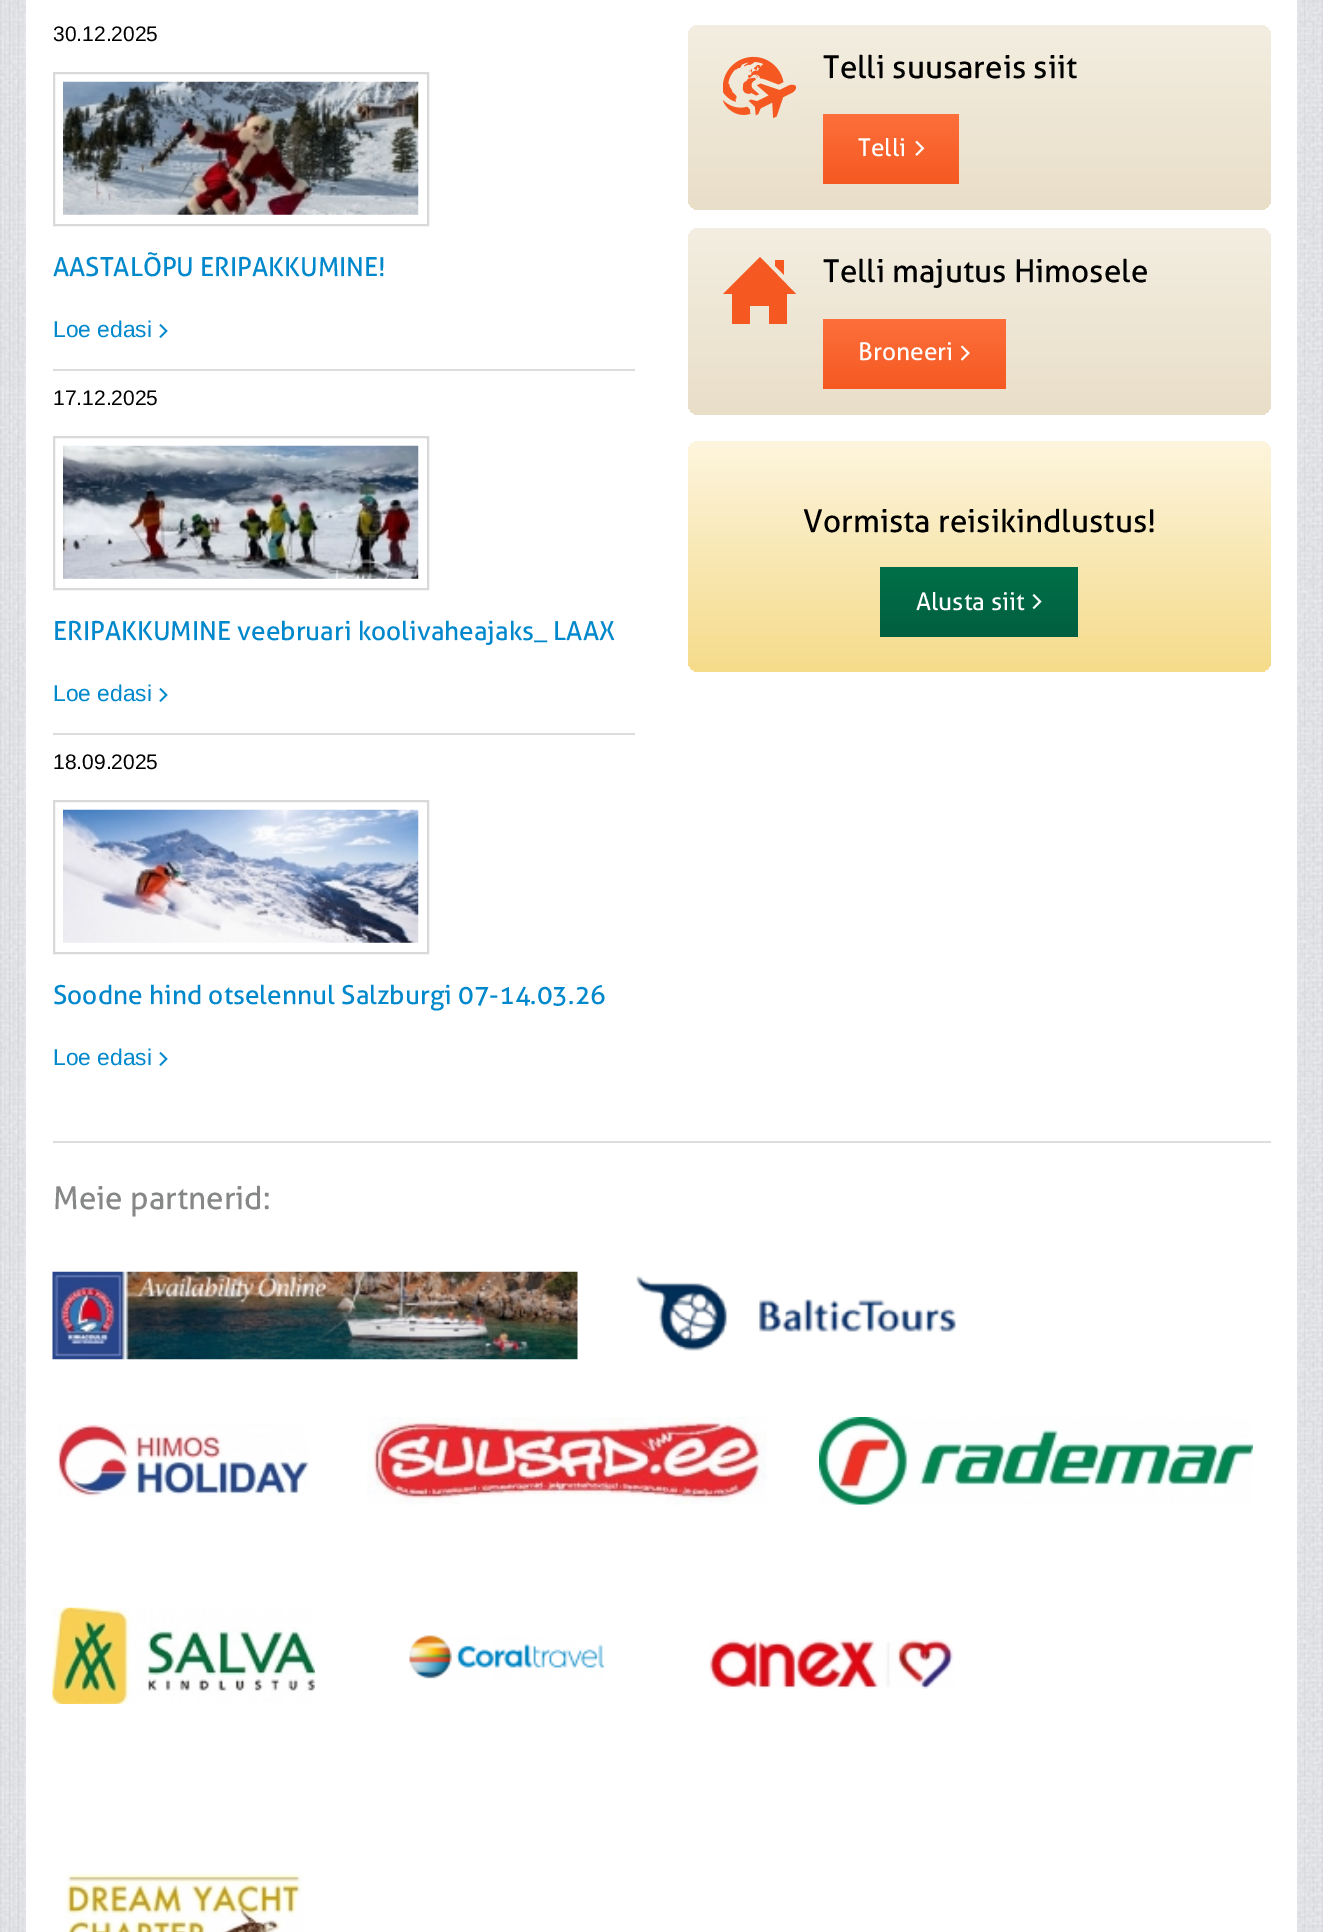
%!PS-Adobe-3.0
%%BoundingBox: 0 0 1323 1932
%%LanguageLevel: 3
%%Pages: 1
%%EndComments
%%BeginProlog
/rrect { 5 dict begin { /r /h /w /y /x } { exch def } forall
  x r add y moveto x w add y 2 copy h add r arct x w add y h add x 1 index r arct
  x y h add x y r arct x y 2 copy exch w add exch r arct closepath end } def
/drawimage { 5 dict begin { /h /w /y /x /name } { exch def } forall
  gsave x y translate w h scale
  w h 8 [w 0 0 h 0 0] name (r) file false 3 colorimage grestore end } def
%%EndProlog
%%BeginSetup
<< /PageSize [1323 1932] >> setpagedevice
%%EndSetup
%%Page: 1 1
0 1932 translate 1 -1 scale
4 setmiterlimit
1 setgray
0 0 1323 1932 rectfill
(images/1.raw) 0 0 1323 1932 drawimage
26 0 1271 1932 rectfill
0.851 setgray
2 setlinewidth
54 73 374 152 rectstroke
(images/2.raw) 63 81 356 134 drawimage
(images/3.raw) 159 324 9 14 drawimage
0.867 setgray
53 369 582 2 rectfill
0.851 setgray
54 437 374 152 rectstroke
(images/4.raw) 63 445 356 134 drawimage
(images/3.raw) 159 688 9 14 drawimage
0.867 setgray
53 733 582 2 rectfill
0.851 setgray
54 801 374 152 rectstroke
(images/5.raw) 63 809 356 134 drawimage
(images/3.raw) 159 1052 9 14 drawimage
gsave 688 25 583 185 11 rrect clip newpath
<< /ShadingType 2 /ColorSpace /DeviceRGB /Coords [979 24 979 210] /Extend [true true] /Function << /FunctionType 2 /Domain [0 1] /C0 [0.953 0.933 0.882] /C1 [0.914 0.871 0.784] /N 1 >> >> shfill grestore
(images/6.raw) 723 56 73 63 drawimage
gsave newpath 823 114 moveto 959 114 lineto 959 184 lineto 823 184 lineto closepath clip newpath
<< /ShadingType 2 /ColorSpace /DeviceRGB /Coords [891 114 891 184] /Extend [true true] /Function << /FunctionType 2 /Domain [0 1] /C0 [0.992 0.435 0.231] /C1 [0.961 0.349 0.129] /N 1 >> >> shfill grestore
(images/7.raw) 915 140 10 16 drawimage
gsave 688 228 583 187 11 rrect clip newpath
<< /ShadingType 2 /ColorSpace /DeviceRGB /Coords [979 227 979 415] /Extend [true true] /Function << /FunctionType 2 /Domain [0 1] /C0 [0.953 0.933 0.882] /C1 [0.914 0.871 0.784] /N 1 >> >> shfill grestore
0.961 0.349 0.129 setrgbcolor
newpath 787 294 moveto 787 324 lineto 769 324 lineto 769 306 lineto 750 306 lineto 750 324 lineto 732 324 lineto 732 294 lineto 723 294 lineto 760 257 lineto 796 294 lineto closepath 784 275 moveto 784 260 lineto 775 260 lineto 775 266 lineto closepath fill
gsave newpath 823 319 moveto 1006 319 lineto 1006 389 lineto 823 389 lineto closepath clip newpath
<< /ShadingType 2 /ColorSpace /DeviceRGB /Coords [914 319 914 389] /Extend [true true] /Function << /FunctionType 2 /Domain [0 1] /C0 [0.992 0.435 0.231] /C1 [0.961 0.349 0.129] /N 1 >> >> shfill grestore
(images/8.raw) 960 345 10 16 drawimage
gsave 688 441 583 231 11 rrect clip newpath
<< /ShadingType 2 /ColorSpace /DeviceRGB /Coords [979 441 979 672] /Extend [true true] /Function << /FunctionType 2 /Domain [0 1] /C0 [0.992 0.961 0.871] /C1 [0.961 0.859 0.541] /N 1 >> >> shfill grestore
gsave newpath 880 567 moveto 1078 567 lineto 1078 637 lineto 880 637 lineto closepath clip newpath
<< /ShadingType 2 /ColorSpace /DeviceRGB /Coords [979 567 979 637] /Extend [true true] /Function << /FunctionType 2 /Domain [0 1] /C0 [0 0.439 0.286] /C1 [0 0.373 0.247] /N 1 >> >> shfill grestore
(images/9.raw) 1032 594 10 16 drawimage
0.867 setgray
53 1141 1218 2 rectfill
(images/10.raw) 52 1271 526 89 drawimage
(images/11.raw) 636 1275 320 76 drawimage
(images/12.raw) 57 1424 252 73 drawimage
(images/13.raw) 367 1417 400 88 drawimage
(images/14.raw) 819 1417 434 88 drawimage
(images/15.raw) 52 1607 263 97 drawimage
(images/16.raw) 409 1635 196 44 drawimage
(images/17.raw) 709 1639 245 50 drawimage
(images/18.raw) 65 1873 238 59 drawimage
/LiberationSans-Regular [21 0 0 -21 0 0] selectfont
0 setgray
53 41 moveto (30.12.2025) show
/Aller-Regular [26.25 0 0 -26.25 0 0] selectfont
0 0.533 0.8 setrgbcolor
53 276 moveto (AASTALÕPU ERIPAKKUMINE!) show
/LiberationSans-Regular [22.75 0 0 -22.75 0 0] selectfont
53 337 moveto (Loe edasi) show
/LiberationSans-Regular [21 0 0 -21 0 0] selectfont
0 setgray
53 405 moveto (17.12.2025) show
/Aller-Regular [26.25 0 0 -26.25 0 0] selectfont
0 0.533 0.8 setrgbcolor
53 640 moveto (ERIPAKKUMINE veebruari koolivaheajaks_ LAAX) show
/LiberationSans-Regular [22.75 0 0 -22.75 0 0] selectfont
53 701 moveto (Loe edasi) show
/LiberationSans-Regular [21 0 0 -21 0 0] selectfont
0 setgray
53 769 moveto (18.09.2025) show
/Aller-Regular [26.25 0 0 -26.25 0 0] selectfont
0 0.533 0.8 setrgbcolor
53 1004 moveto (Soodne hind otselennul Salzburgi 07-14.03.26) show
/LiberationSans-Regular [22.75 0 0 -22.75 0 0] selectfont
53 1065 moveto (Loe edasi) show
/Aller-Regular [31.5 0 0 -31.5 0 0] selectfont
0 setgray
823 78 moveto (Telli suusareis siit) show
/Aller-Regular [24.5 0 0 -24.5 0 0] selectfont
1 setgray
858 156 moveto (Telli) show
/Aller-Regular [31.5 0 0 -31.5 0 0] selectfont
0 setgray
823 282 moveto (Telli majutus Himosele) show
/Aller-Regular [24.5 0 0 -24.5 0 0] selectfont
1 setgray
858 360 moveto (Broneeri) show
/Aller-Regular [31.5 0 0 -31.5 0 0] selectfont
0 setgray
803 532 moveto (Vormista reisikindlustus!) show
/Aller-Regular [24.5 0 0 -24.5 0 0] selectfont
1 setgray
916 610 moveto (Alusta siit) show
/Aller-Regular [31.5 0 0 -31.5 0 0] selectfont
0.525 0.529 0.529 setrgbcolor
53 1209 moveto (Meie partnerid:) show
showpage
%%EOF
